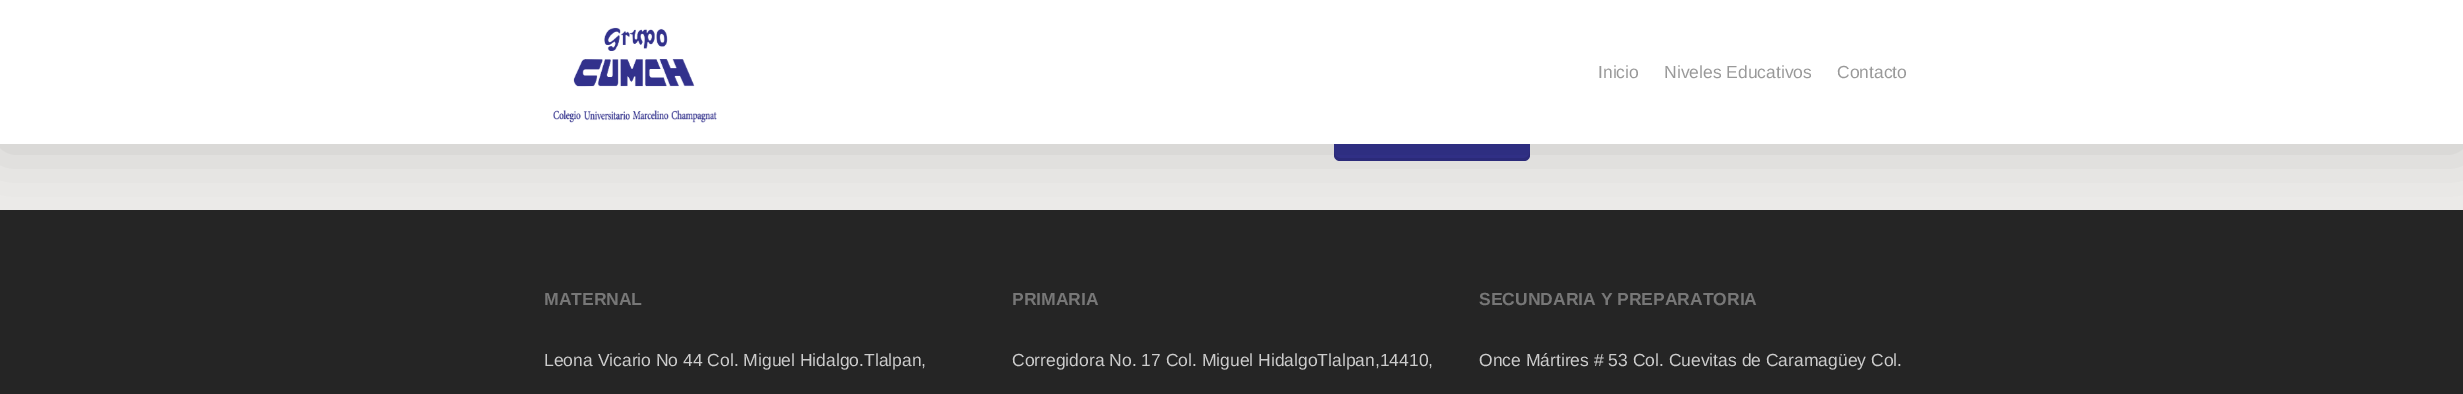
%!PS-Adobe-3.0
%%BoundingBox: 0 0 2463 394
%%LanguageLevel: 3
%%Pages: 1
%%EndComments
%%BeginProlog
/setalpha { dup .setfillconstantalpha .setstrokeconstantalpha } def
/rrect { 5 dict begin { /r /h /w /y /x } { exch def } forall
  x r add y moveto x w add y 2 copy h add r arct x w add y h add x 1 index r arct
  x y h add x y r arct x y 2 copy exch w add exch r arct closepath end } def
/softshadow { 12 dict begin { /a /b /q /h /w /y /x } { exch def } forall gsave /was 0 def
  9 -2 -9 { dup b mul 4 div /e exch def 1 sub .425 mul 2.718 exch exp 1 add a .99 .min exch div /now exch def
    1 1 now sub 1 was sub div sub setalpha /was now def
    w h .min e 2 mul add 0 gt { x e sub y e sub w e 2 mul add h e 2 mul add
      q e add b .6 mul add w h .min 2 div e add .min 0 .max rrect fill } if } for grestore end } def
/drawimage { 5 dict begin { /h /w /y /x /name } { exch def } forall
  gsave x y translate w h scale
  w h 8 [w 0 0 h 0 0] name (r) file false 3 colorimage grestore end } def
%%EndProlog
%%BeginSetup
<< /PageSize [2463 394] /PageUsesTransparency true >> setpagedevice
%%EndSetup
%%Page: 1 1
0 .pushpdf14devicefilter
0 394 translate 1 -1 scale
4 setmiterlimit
0.145 setgray
0 0 2463 394 rectfill
0.925 0.922 0.914 setrgbcolor
0 144 2463 66 rectfill
0.196 0.192 0.549 setrgbcolor
1334 91 196 70 6 rrect fill
0.1 setalpha
0 setgray
newpath 1334 151 moveto 1334 155 lineto 1334 158 1337 161 1340 161 curveto 1524 161 lineto 1527 161 1530 158 1530 155 curveto 1530 151 lineto 1530 155 1527 158 1524 158 curveto 1340 158 lineto 1337 158 1334 155 1334 151 curveto closepath fill
1 setalpha
0 4 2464 144 0 28 0.15 softshadow
1 setgray
0 0 2463 144 rectfill
(images/1.raw) 553 27 164 96 drawimage
/LiberationSans-Regular [17.5 0 0 -17.5 0 0] selectfont
0.6 setgray
1598 78 moveto (Inicio) show
1664 78 moveto (Niveles Educativos) show
1837 78 moveto (Contacto) show
/LiberationSans-Bold [17.5 0 0 -17.5 0 0] selectfont
0.467 setgray
544 305 moveto (MATERNAL) show
/LiberationSans-Regular [17.5 0 0 -17.5 0 0] selectfont
0.8 setgray
544 366 moveto (Leona Vicario No 44 Col. Miguel Hidalgo.Tlalpan,) show
/LiberationSans-Bold [17.5 0 0 -17.5 0 0] selectfont
0.467 setgray
1012 305 moveto (PRIMARIA) show
/LiberationSans-Regular [17.5 0 0 -17.5 0 0] selectfont
0.8 setgray
1012 366 moveto (Corregidora No. 17 Col. Miguel HidalgoTlalpan,14410,) show
/LiberationSans-Bold [17.5 0 0 -17.5 0 0] selectfont
0.467 setgray
1479 305 moveto (SECUNDARIA Y PREPARATORIA) show
/LiberationSans-Regular [17.5 0 0 -17.5 0 0] selectfont
0.8 setgray
1479 366 moveto (Once Mártires # 53 Col. Cuevitas de Caramagüey Col.) show
.poppdf14devicefilter showpage
%%EOF
